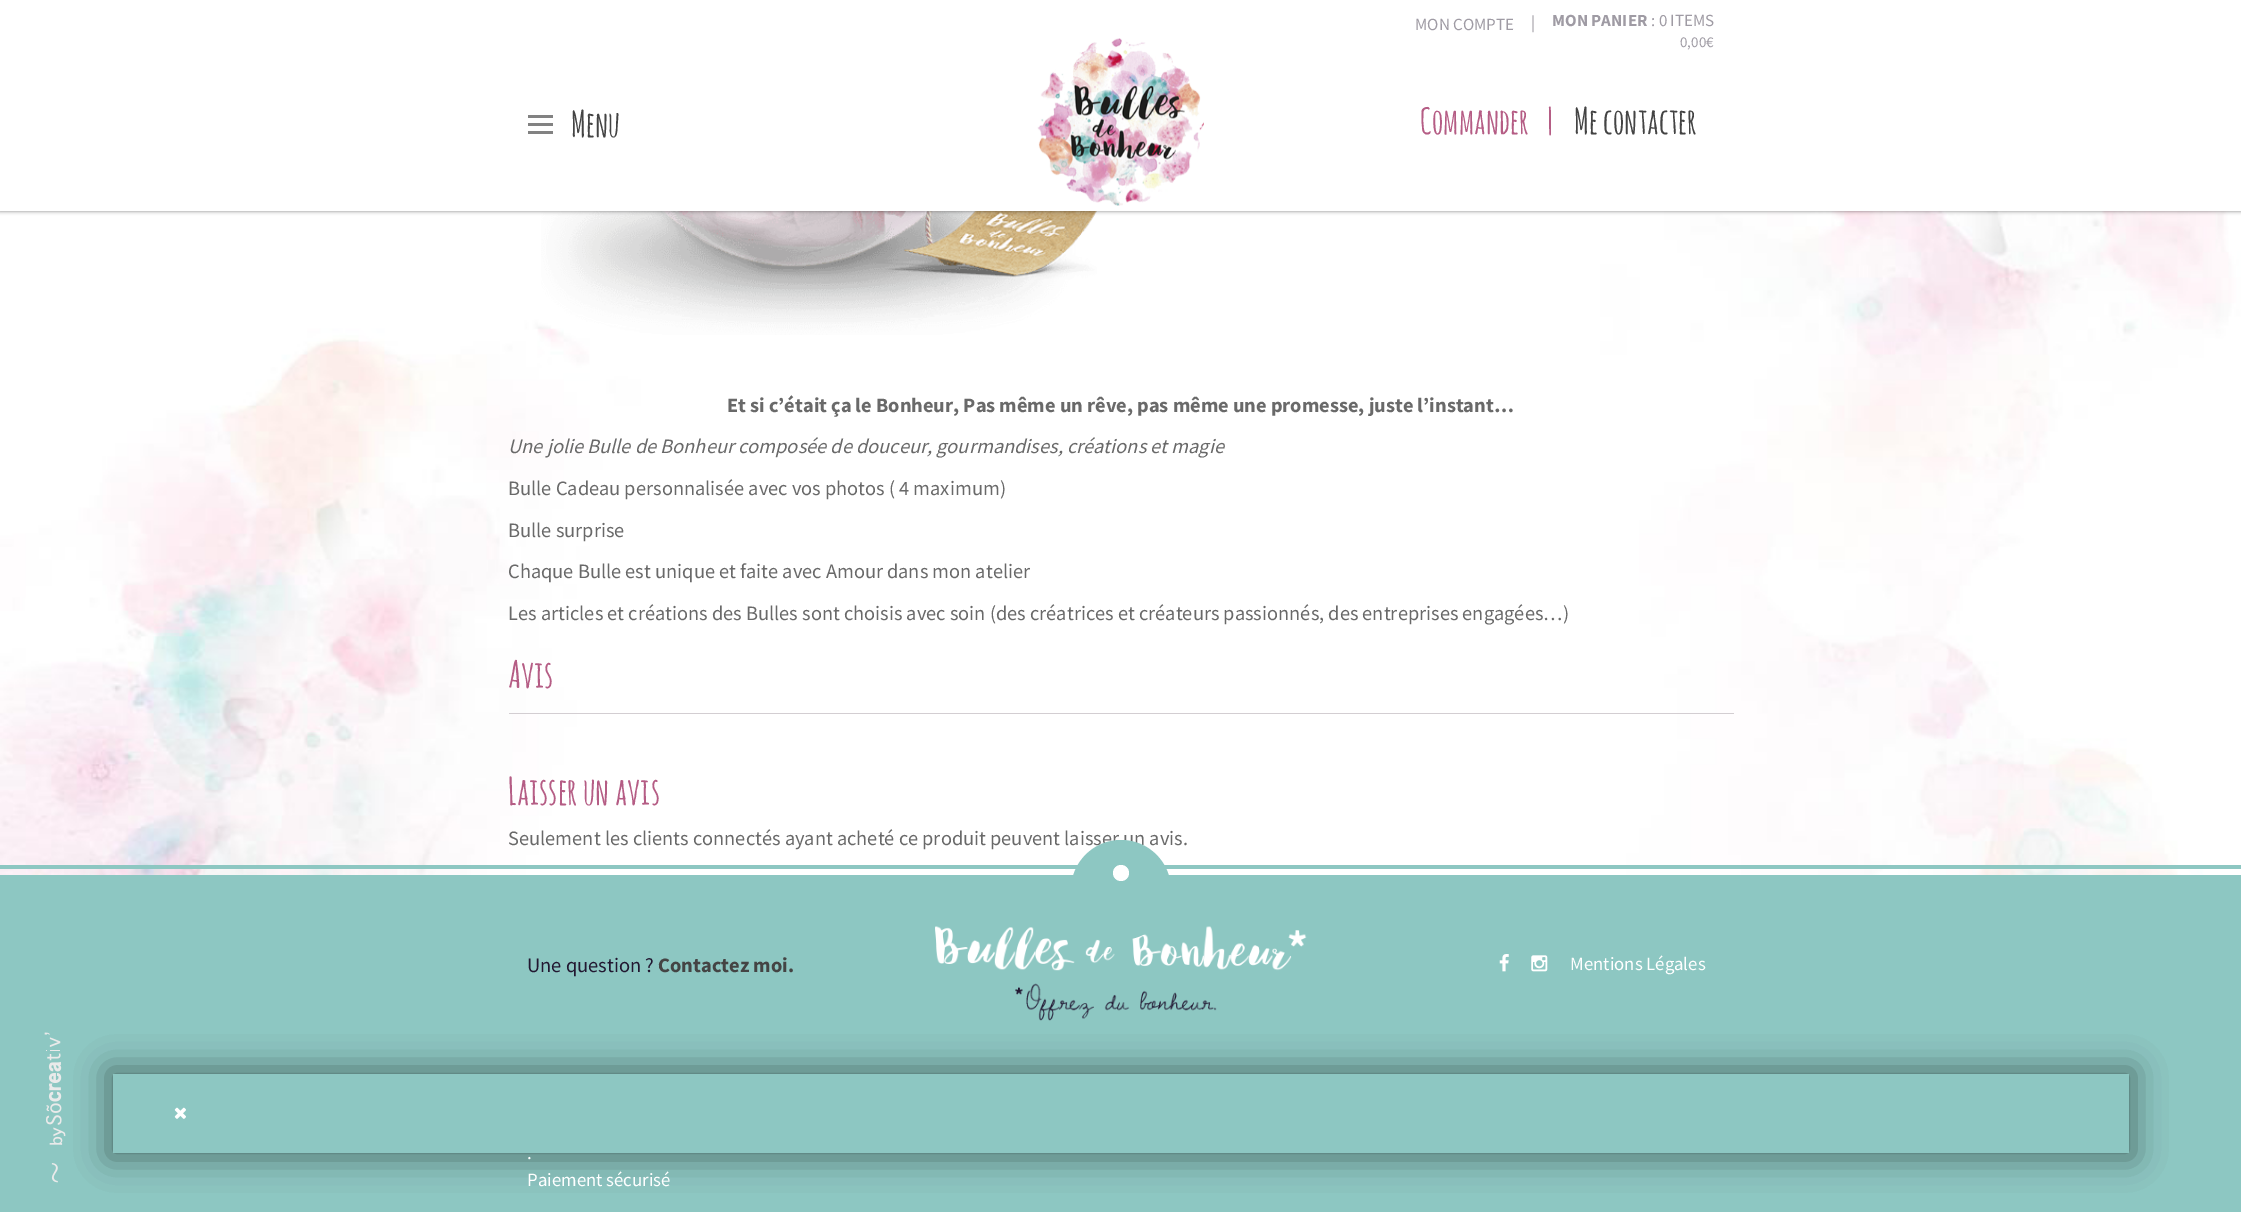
%!PS-Adobe-3.0
%%BoundingBox: 0 0 2241 1212
%%LanguageLevel: 3
%%Pages: 1
%%EndComments
%%BeginProlog
/setalpha { dup .setfillconstantalpha .setstrokeconstantalpha } def
/rrect { 5 dict begin { /r /h /w /y /x } { exch def } forall
  x r add y moveto x w add y 2 copy h add r arct x w add y h add x 1 index r arct
  x y h add x y r arct x y 2 copy exch w add exch r arct closepath end } def
/softshadow { 12 dict begin { /a /b /q /h /w /y /x } { exch def } forall gsave /was 0 def
  9 -2 -9 { dup b mul 4 div /e exch def 1 sub .425 mul 2.718 exch exp 1 add a .99 .min exch div /now exch def
    1 1 now sub 1 was sub div sub setalpha /was now def
    w h .min e 2 mul add 0 gt { x e sub y e sub w e 2 mul add h e 2 mul add
      q e add b .6 mul add w h .min 2 div e add .min 0 .max rrect fill } if } for grestore end } def
/drawimage { 5 dict begin { /h /w /y /x /name } { exch def } forall
  gsave x y translate w h scale
  w h 8 [w 0 0 h 0 0] name (r) file false 3 colorimage grestore end } def
%%EndProlog
%%BeginSetup
<< /PageSize [2241 1212] /PageUsesTransparency true >> setpagedevice
%%EndSetup
%%Page: 1 1
0 .pushpdf14devicefilter
0 1212 translate 1 -1 scale
4 setmiterlimit
1 setgray
0 0 2241 1212 rectfill
(images/1.raw) 0 211 2241 664 drawimage
(images/3.raw) 541 211 556 124 drawimage
0 setgray
0 0 2241 211 0 2 0.5 softshadow
1 setgray
0 0 2241 211 rectfill
0.51 setgray
528 115 25 3 rectfill
528 123 25 3 rectfill
528 131 25 3 rectfill
(images/2.raw) 1037 38 167 168 drawimage
0.827 0.808 0.824 setrgbcolor
509 713 1225 1 rectfill
0.553 0.78 0.761 setrgbcolor
0 865 2241 4 rectfill
0 875 2241 337 rectfill
(images/4.raw) 935 926 372 95 drawimage
(images/5.raw) 44 1032 22 151 drawimage
(images/6.raw) 1499 954 10 18 drawimage
(images/7.raw) 1531 955 17 17 drawimage
0 setgray
108 1069 2026 89 0 15.5 0.24 softshadow
108 1069 2026 89 0 15.5 0.24 softshadow
0.553 0.78 0.761 setrgbcolor
113 1074 2016 79 rectfill
(images/8.raw) 174 1107 12 12 drawimage
/SourceSansPro-Regular [17 0 0 -17 0 0] selectfont
0.624 0.608 0.643 setrgbcolor
1415 30 moveto (MON COMPTE) show
1531 28 moveto (|) show
/SourceSansPro-Bold [17 0 0 -17 0 0] selectfont
1552 26 moveto (MON PANIER) show
/SourceSansPro-Regular [17 0 0 -17 0 0] selectfont
1651 26 moveto (: 0 ITEMS) show
/SourceSansPro-Regular [15 0 0 -15 0 0] selectfont
1680 47 moveto (0,00€) show
/AmaticSC-Bold [35.5 0 0 -35.5 0 0] selectfont
0.267 setgray
571 137 moveto (Menu) show
0.71 0.365 0.522 setrgbcolor
1420 134 moveto (Commander) show
1547 134 moveto (|) show
0.267 setgray
1574 134 moveto (Me contacter) show
/SourceSansPro-Bold [20.4 0 0 -20.4 0 0] selectfont
0.412 setgray
727 412 moveto (Et si c’était ça le Bonheur, Pas même un rêve, pas même une promesse, juste l’instant…) show
/SourceSansPro-Italic [20.4 0 0 -20.4 0 0] selectfont
508 453 moveto (Une jolie Bulle de Bonheur composée de douceur, gourmandises, créations et magie) show
/SourceSansPro-Regular [20.4 0 0 -20.4 0 0] selectfont
508 495 moveto (Bulle Cadeau personnalisée avec vos photos \( 4 maximum\)) show
508 537 moveto (Bulle surprise) show
508 578 moveto (Chaque Bulle est unique et faite avec Amour dans mon atelier) show
508 620 moveto (Les articles et créations des Bulles sont choisis avec soin \(des créatrices et créateurs passionnés, des entreprises engagées…\)) show
/AmaticSC-Bold [37.5 0 0 -37.5 0 0] selectfont
0.71 0.365 0.522 setrgbcolor
508 688 moveto (Avis) show
508 805 moveto (Laisser un avis) show
/SourceSansPro-Regular [20.4 0 0 -20.4 0 0] selectfont
0.412 setgray
508 845 moveto (Seulement les clients connectés ayant acheté ce produit peuvent laisser un avis.) show
0.553 0.78 0.761 setrgbcolor
newpath 1121 890 50 0 360 arc closepath fill
1 setgray
newpath 1121 873 8 0 360 arc closepath fill
/SourceSansPro-Regular [18.75 0 0 -18.75 0 0] selectfont
1570 970 moveto (Mentions Légales) show
/SourceSansPro-Regular [20.5 0 0 -20.5 0 0] selectfont
0.133 0.094 0.192 setrgbcolor
527 972 moveto (Une question ?) show
/SourceSansPro-Bold [20.5 0 0 -20.5 0 0] selectfont
0.267 setgray
658 972 moveto (Contactez moi.) show
/SourceSansPro-Regular [18.75 0 0 -18.75 0 0] selectfont
1 setgray
527 1159 moveto (.) show
527 1186 moveto (Paiement sécurisé) show
.poppdf14devicefilter showpage
%%EOF
